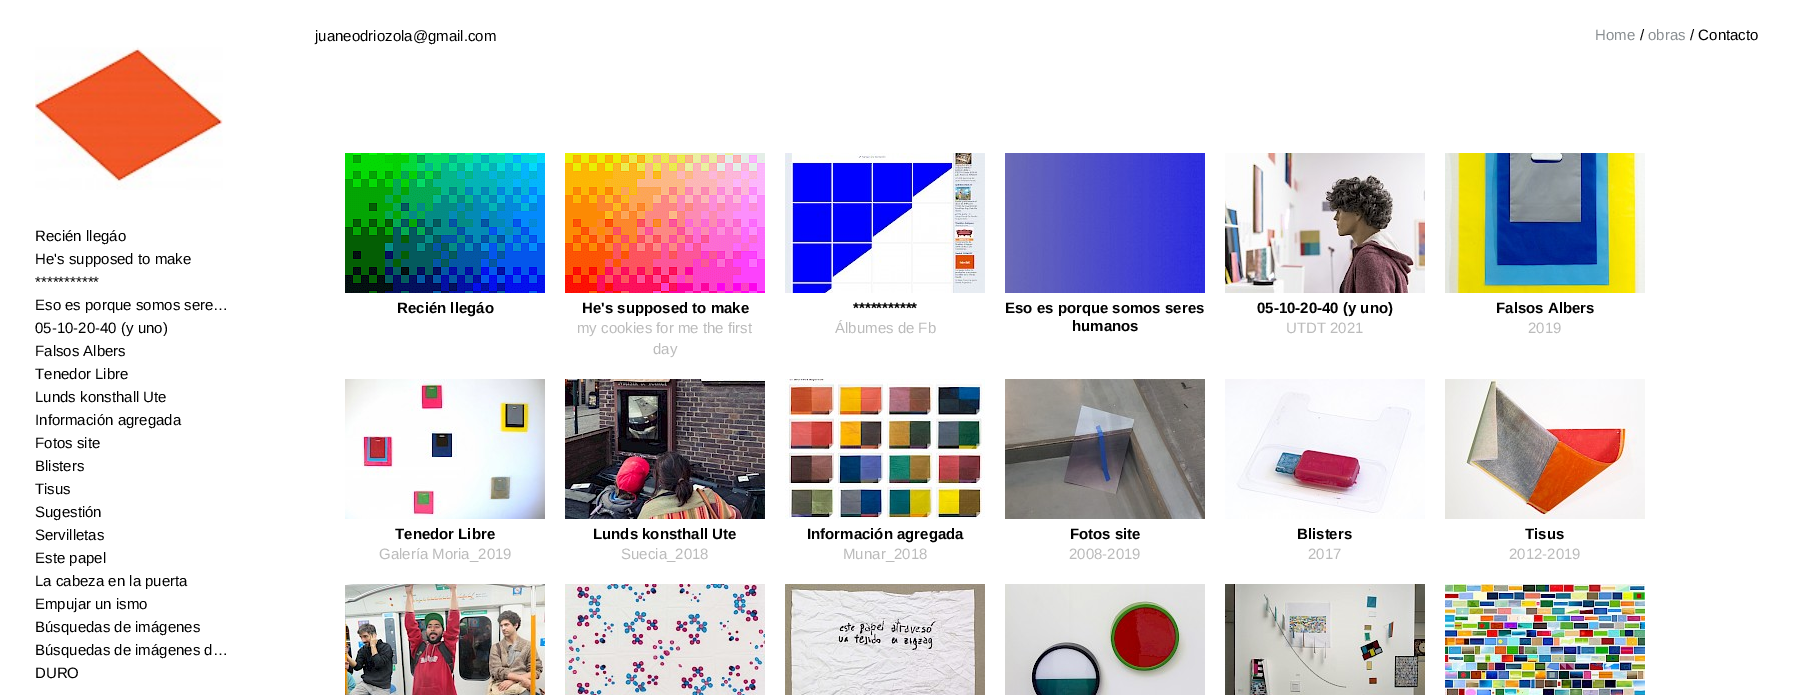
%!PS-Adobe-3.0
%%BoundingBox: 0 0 1793 695
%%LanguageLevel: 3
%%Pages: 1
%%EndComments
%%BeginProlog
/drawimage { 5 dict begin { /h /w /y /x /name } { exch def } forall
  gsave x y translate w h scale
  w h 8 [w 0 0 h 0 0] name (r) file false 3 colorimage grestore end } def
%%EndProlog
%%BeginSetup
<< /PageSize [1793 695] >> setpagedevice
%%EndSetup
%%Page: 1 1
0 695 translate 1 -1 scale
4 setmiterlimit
1 setgray
0 0 1793 695 rectfill
(images/1.raw) 345 153 200 140 drawimage
(images/2.raw) 565 153 200 140 drawimage
(images/3.raw) 785 153 200 140 drawimage
(images/4.raw) 1005 153 200 140 drawimage
(images/5.raw) 1225 153 200 140 drawimage
(images/6.raw) 1445 153 200 140 drawimage
(images/7.raw) 345 379 200 140 drawimage
(images/8.raw) 565 379 200 140 drawimage
(images/9.raw) 785 379 200 140 drawimage
(images/10.raw) 1005 379 200 140 drawimage
(images/11.raw) 1225 379 200 140 drawimage
(images/12.raw) 1445 379 200 140 drawimage
(images/13.raw) 345 584 200 111 drawimage
(images/14.raw) 565 584 200 111 drawimage
(images/15.raw) 785 584 200 111 drawimage
(images/16.raw) 1005 584 200 111 drawimage
(images/17.raw) 1225 584 200 111 drawimage
(images/18.raw) 1445 584 200 111 drawimage
(images/19.raw) 35 47 188 143 drawimage
/LiberationSans-Regular [15 0 0 -15 0 0] selectfont
0 setgray
35 241 moveto (Recién llegáo) show
35 264 moveto (He's supposed to make) show
35 287 moveto (***********) show
35 310 moveto (Eso es porque somos sere…) show
35 333 moveto (05-10-20-40 \(y uno\)) show
35 356 moveto (Falsos Albers) show
35 379 moveto (Tenedor Libre) show
35 402 moveto (Lunds konsthall Ute) show
35 425 moveto (Información agregada) show
35 448 moveto (Fotos site) show
35 471 moveto (Blisters) show
35 494 moveto (Tisus) show
35 517 moveto (Sugestión) show
35 540 moveto (Servilletas) show
35 563 moveto (Este papel) show
35 586 moveto (La cabeza en la puerta) show
35 609 moveto (Empujar un ismo) show
35 632 moveto (Búsquedas de imágenes) show
35 655 moveto (Búsquedas de imágenes d…) show
35 678 moveto (DURO) show
315 41 moveto (juaneodriozola@gmail.com) show
/LiberationSans-Bold [15 0 0 -15 0 0] selectfont
397 313 moveto (Recién llegáo) show
582 313 moveto (He's supposed to make) show
/LiberationSans-Regular [15 0 0 -15 0 0] selectfont
0.733 setgray
577 333 moveto (my cookies for me the first) show
653 354 moveto (day) show
/LiberationSans-Bold [15 0 0 -15 0 0] selectfont
0 setgray
853 313 moveto (***********) show
/LiberationSans-Regular [15 0 0 -15 0 0] selectfont
0.733 setgray
835 333 moveto (Álbumes de Fb) show
/LiberationSans-Bold [15 0 0 -15 0 0] selectfont
0 setgray
1005 313 moveto (Eso es porque somos seres) show
1072 331 moveto (humanos) show
1257 313 moveto (05-10-20-40 \(y uno\)) show
/LiberationSans-Regular [15 0 0 -15 0 0] selectfont
0.733 setgray
1286 333 moveto (UTDT 2021) show
/LiberationSans-Bold [15 0 0 -15 0 0] selectfont
0 setgray
1496 313 moveto (Falsos Albers) show
/LiberationSans-Regular [15 0 0 -15 0 0] selectfont
0.733 setgray
1528 333 moveto (2019) show
/LiberationSans-Bold [15 0 0 -15 0 0] selectfont
0 setgray
395 539 moveto (Tenedor Libre) show
/LiberationSans-Regular [15 0 0 -15 0 0] selectfont
0.733 setgray
379 559 moveto (Galería Moria_2019) show
/LiberationSans-Bold [15 0 0 -15 0 0] selectfont
0 setgray
593 539 moveto (Lunds konsthall Ute) show
/LiberationSans-Regular [15 0 0 -15 0 0] selectfont
0.733 setgray
621 559 moveto (Suecia_2018) show
/LiberationSans-Bold [15 0 0 -15 0 0] selectfont
0 setgray
807 539 moveto (Información agregada) show
/LiberationSans-Regular [15 0 0 -15 0 0] selectfont
0.733 setgray
843 559 moveto (Munar_2018) show
/LiberationSans-Bold [15 0 0 -15 0 0] selectfont
0 setgray
1070 539 moveto (Fotos site) show
/LiberationSans-Regular [15 0 0 -15 0 0] selectfont
0.733 setgray
1069 559 moveto (2008-2019) show
/LiberationSans-Bold [15 0 0 -15 0 0] selectfont
0 setgray
1297 539 moveto (Blisters) show
/LiberationSans-Regular [15 0 0 -15 0 0] selectfont
0.733 setgray
1308 559 moveto (2017) show
/LiberationSans-Bold [15 0 0 -15 0 0] selectfont
0 setgray
1525 539 moveto (Tisus) show
/LiberationSans-Regular [15 0 0 -15 0 0] selectfont
0.733 setgray
1509 559 moveto (2012-2019) show
0.541 0.561 0.573 setrgbcolor
1595 40 moveto (Home) show
0 setgray
1640 40 moveto (/) show
0.541 0.561 0.573 setrgbcolor
1648 40 moveto (obras) show
0 setgray
1690 40 moveto (/ Contacto) show
showpage
%%EOF
